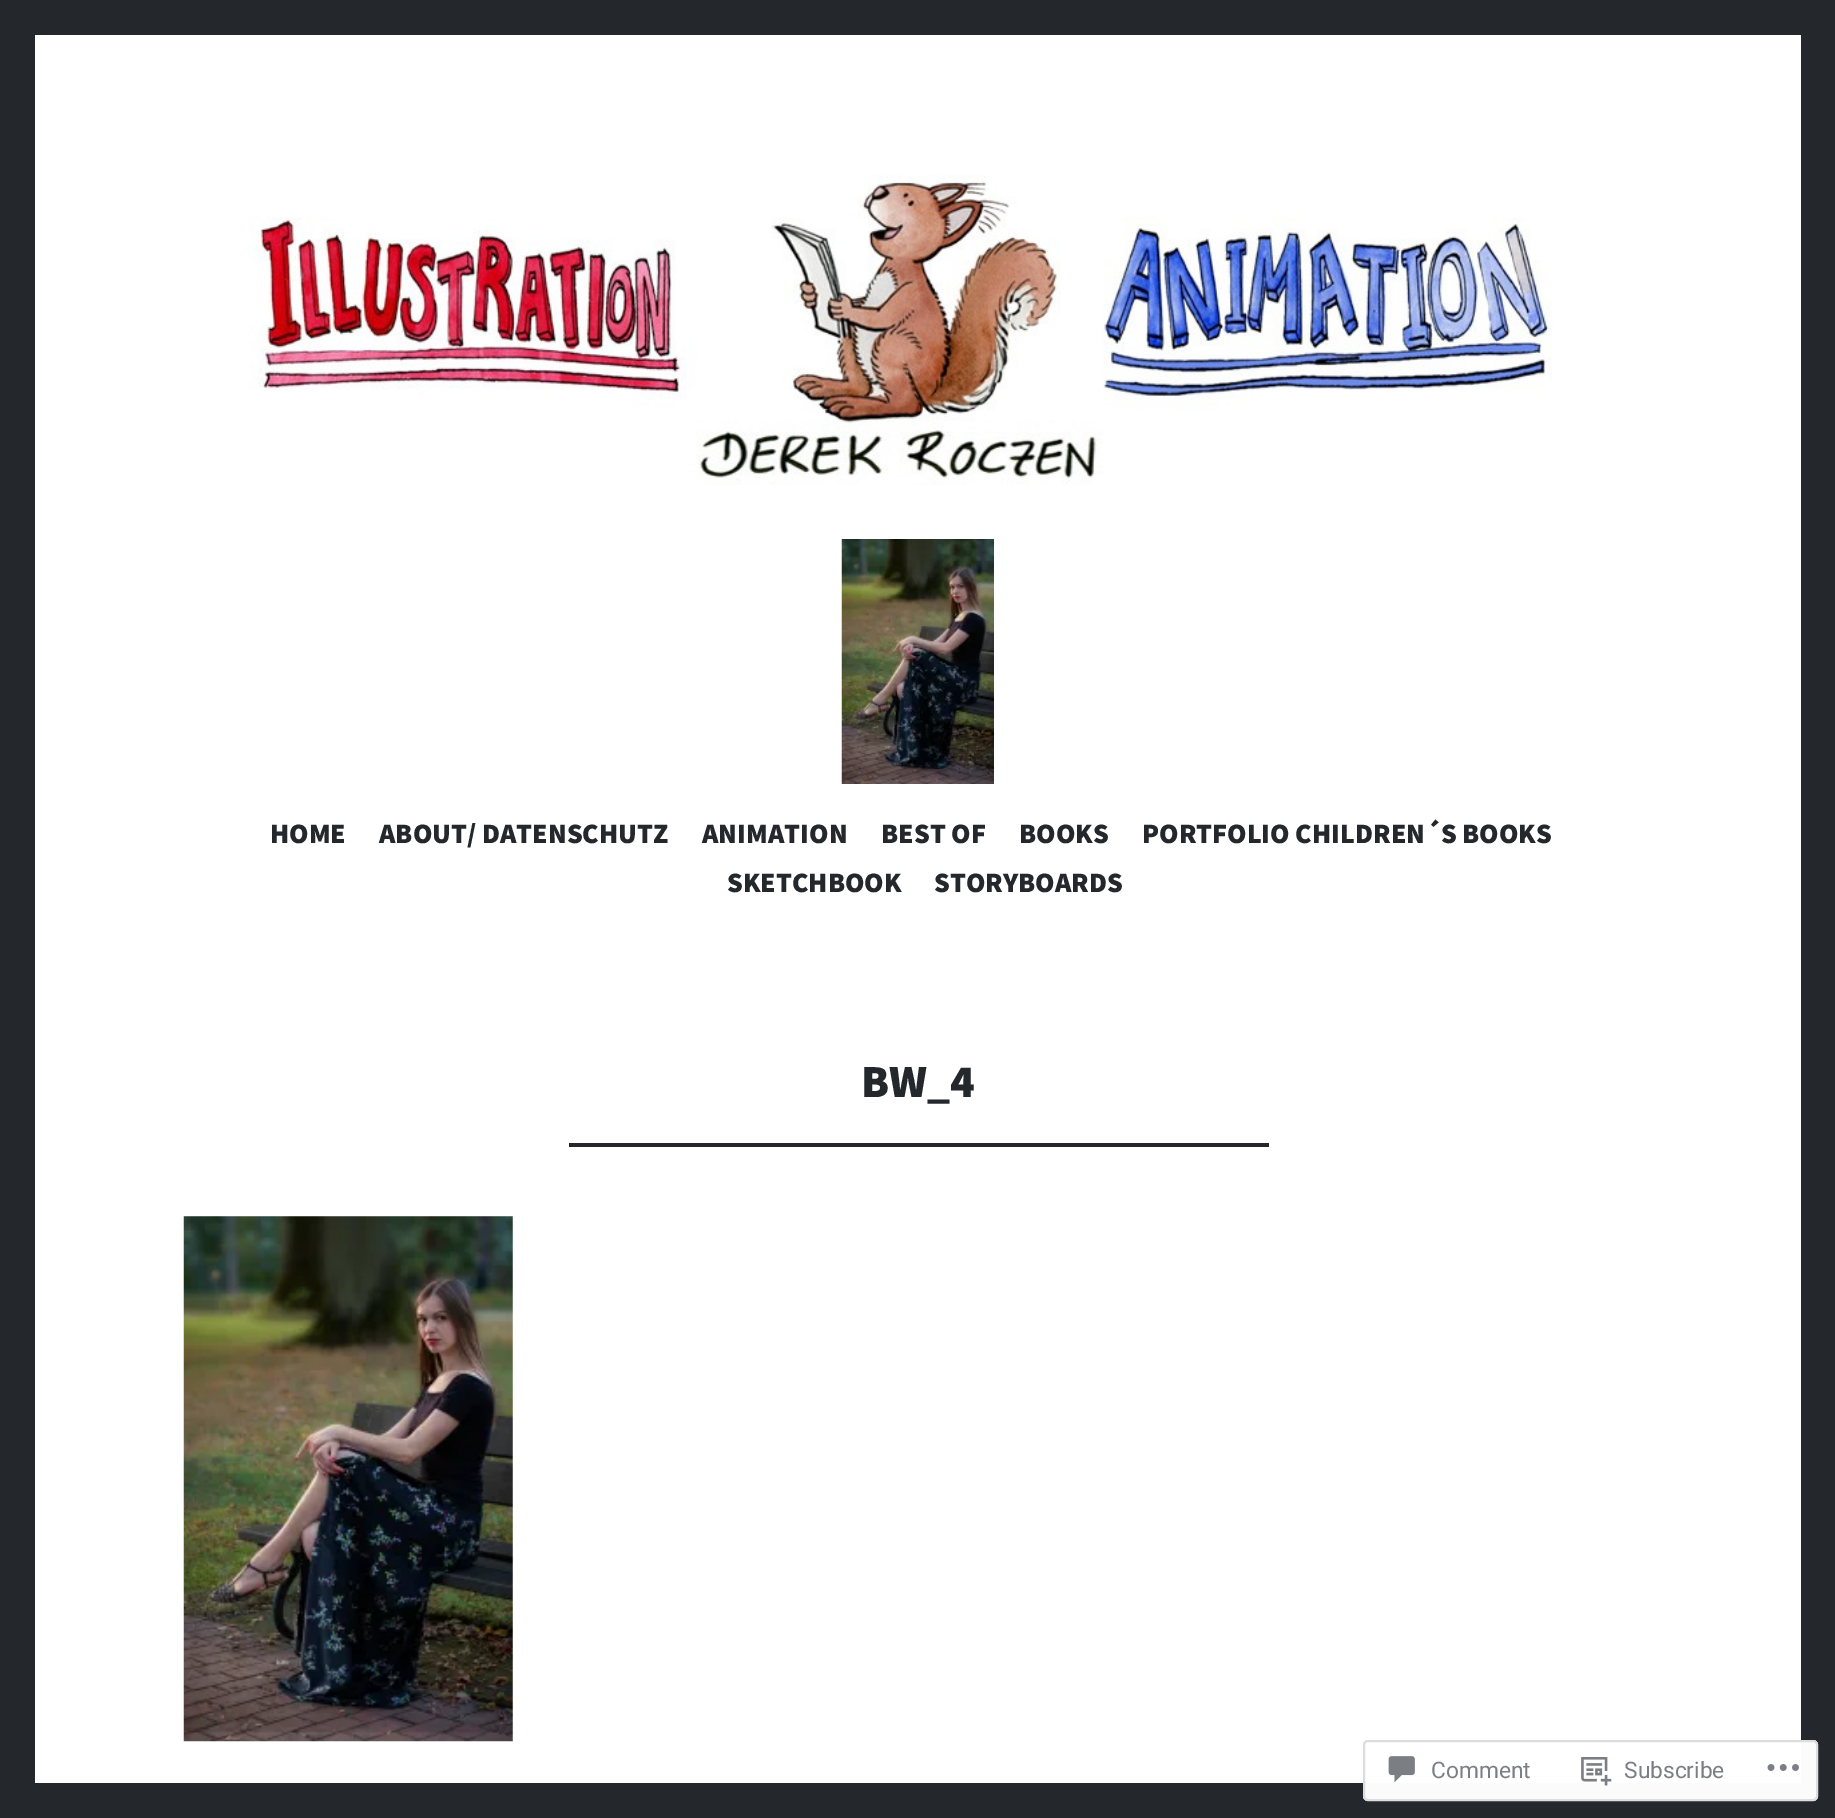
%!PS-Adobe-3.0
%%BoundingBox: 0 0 1835 1818
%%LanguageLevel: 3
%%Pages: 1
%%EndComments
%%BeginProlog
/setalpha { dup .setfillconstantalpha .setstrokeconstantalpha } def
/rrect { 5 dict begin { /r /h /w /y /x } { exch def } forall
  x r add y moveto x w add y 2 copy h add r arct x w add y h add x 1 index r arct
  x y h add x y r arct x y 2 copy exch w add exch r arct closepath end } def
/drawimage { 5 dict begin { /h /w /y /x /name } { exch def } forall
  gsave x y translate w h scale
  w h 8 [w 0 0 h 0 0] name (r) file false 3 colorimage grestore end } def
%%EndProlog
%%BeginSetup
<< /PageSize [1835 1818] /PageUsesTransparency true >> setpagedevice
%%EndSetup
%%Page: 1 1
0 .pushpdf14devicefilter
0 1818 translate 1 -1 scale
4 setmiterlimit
0.141 0.157 0.176 setrgbcolor
0 0 1835 1818 rectfill
1 setgray
35 35 1766 1748 rectfill
(images/1.raw) 248 175 1305 310 drawimage
(images/2.raw) 841 539 153 245 drawimage
0.141 0.157 0.176 setrgbcolor
569 1143 700 4 rectfill
(images/3.raw) 183 1216 330 526 drawimage
0.98 setalpha
1 setgray
1363 1740 455 61 5 rrect fill
0.863 0.863 0.871 setrgbcolor
2 setlinewidth
1364 1741 453 59 4 rrect stroke
1 setalpha
(images/4.raw) 1388 1756 27 27 drawimage
(images/5.raw) 1581 1757 31 29 drawimage
(images/6.raw) 1767 1764 32 7 drawimage
/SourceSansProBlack-Black [28.1 0 0 -28.1 0 0] selectfont
0.141 0.157 0.176 setrgbcolor
270 843 moveto (HOME) show
379 843 moveto (ABOUT/ DATENSCHUTZ) show
702 843 moveto (ANIMATION) show
881 843 moveto (BEST OF) show
1019 843 moveto (BOOKS) show
1142 843 moveto (PORTFOLIO CHILDREN´S BOOKS) show
727 892 moveto (SKETCHBOOK) show
934 892 moveto (STORYBOARDS) show
/SourceSansProBlack-Black [46 0 0 -46 0 0] selectfont
861 1097 moveto (BW_4) show
/Roboto-Regular [22.75 0 0 -22.75 0 0] selectfont
0.482 0.498 0.522 setrgbcolor
1431 1778 moveto (Comment) show
1624 1778 moveto (Subscribe) show
.poppdf14devicefilter showpage
%%EOF
